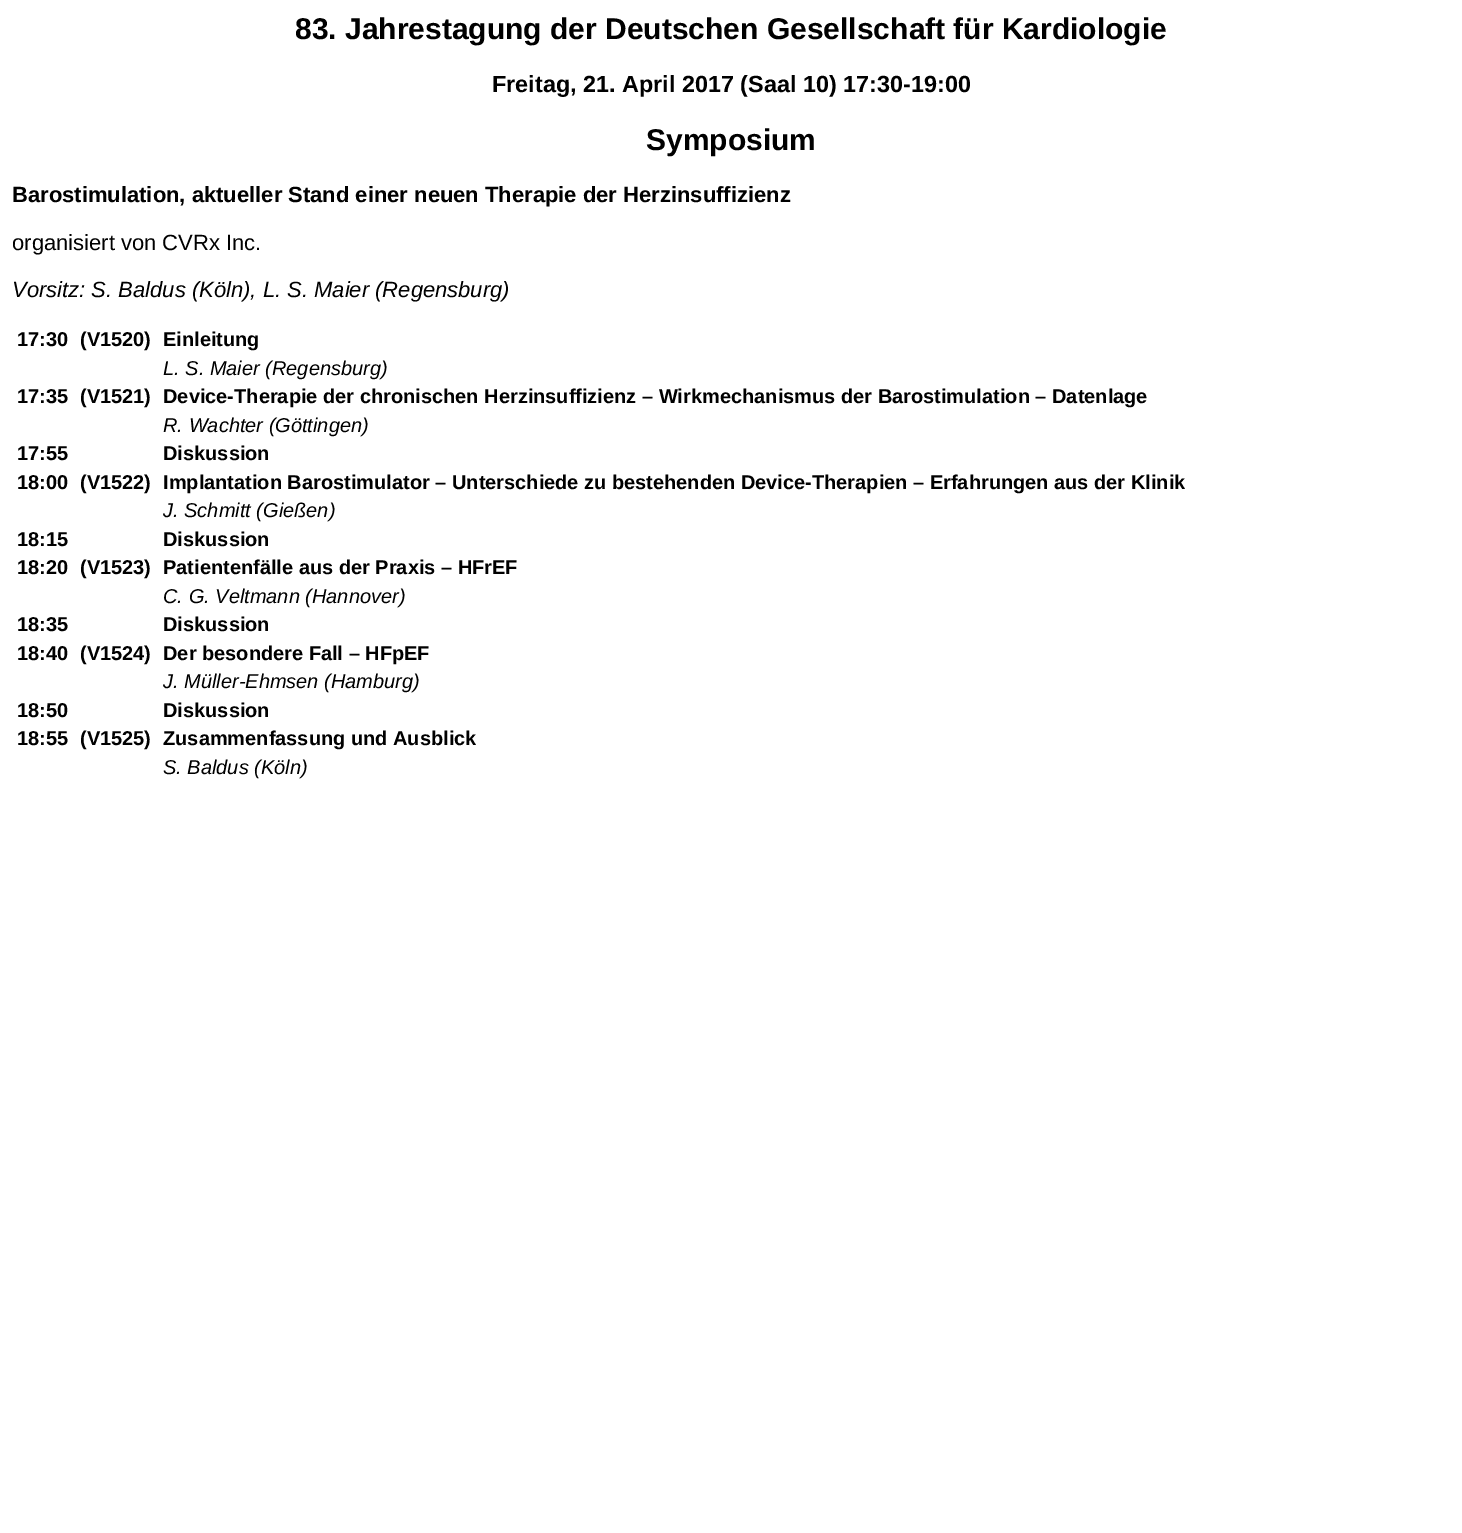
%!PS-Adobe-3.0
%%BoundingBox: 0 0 1462 1533
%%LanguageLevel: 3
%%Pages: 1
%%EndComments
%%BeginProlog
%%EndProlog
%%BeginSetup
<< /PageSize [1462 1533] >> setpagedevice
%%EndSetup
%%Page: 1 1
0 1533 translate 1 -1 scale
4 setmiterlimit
1 setgray
0 0 1462 1533 rectfill
/LiberationSans-Bold [30 0 0 -30 0 0] selectfont
0 setgray
295 39 moveto (83. Jahrestagung der Deutschen Gesellschaft für Kardiologie) show
/LiberationSans-Bold [23.4 0 0 -23.4 0 0] selectfont
492 92 moveto (Freitag, 21. April 2017 \(Saal 10\) 17:30-19:00) show
/LiberationSans-Bold [30 0 0 -30 0 0] selectfont
646 150 moveto (Symposium) show
/LiberationSans-Bold [22 0 0 -22 0 0] selectfont
12 202 moveto (Barostimulation, aktueller Stand einer neuen Therapie der Herzinsuffizienz) show
/LiberationSans-Regular [22 0 0 -22 0 0] selectfont
12 250 moveto (organisiert von CVRx Inc.) show
/LiberationSans-Italic [22 0 0 -22 0 0] selectfont
12 297 moveto (Vorsitz: S. Baldus \(Köln\), L. S. Maier \(Regensburg\)) show
/LiberationSans-Bold [20 0 0 -20 0 0] selectfont
17 346 moveto (17:30) show
80 346 moveto (\(V1520\)) show
163 346 moveto (Einleitung) show
/LiberationSans-Italic [20 0 0 -20 0 0] selectfont
163 375 moveto (L. S. Maier \(Regensburg\)) show
/LiberationSans-Bold [20 0 0 -20 0 0] selectfont
17 403 moveto (17:35) show
80 403 moveto (\(V1521\)) show
163 403 moveto (Device-Therapie der chronischen Herzinsuffizienz – Wirkmechanismus der Barostimulation – Datenlage) show
/LiberationSans-Italic [20 0 0 -20 0 0] selectfont
163 432 moveto (R. Wachter \(Göttingen\)) show
/LiberationSans-Bold [20 0 0 -20 0 0] selectfont
17 460 moveto (17:55) show
163 460 moveto (Diskussion) show
17 489 moveto (18:00) show
80 489 moveto (\(V1522\)) show
163 489 moveto (Implantation Barostimulator – Unterschiede zu bestehenden Device-Therapien – Erfahrungen aus der Klinik) show
/LiberationSans-Italic [20 0 0 -20 0 0] selectfont
163 517 moveto (J. Schmitt \(Gießen\)) show
/LiberationSans-Bold [20 0 0 -20 0 0] selectfont
17 546 moveto (18:15) show
163 546 moveto (Diskussion) show
17 574 moveto (18:20) show
80 574 moveto (\(V1523\)) show
163 574 moveto (Patientenfälle aus der Praxis – HFrEF) show
/LiberationSans-Italic [20 0 0 -20 0 0] selectfont
163 603 moveto (C. G. Veltmann \(Hannover\)) show
/LiberationSans-Bold [20 0 0 -20 0 0] selectfont
17 631 moveto (18:35) show
163 631 moveto (Diskussion) show
17 660 moveto (18:40) show
80 660 moveto (\(V1524\)) show
163 660 moveto (Der besondere Fall – HFpEF) show
/LiberationSans-Italic [20 0 0 -20 0 0] selectfont
163 688 moveto (J. Müller-Ehmsen \(Hamburg\)) show
/LiberationSans-Bold [20 0 0 -20 0 0] selectfont
17 717 moveto (18:50) show
163 717 moveto (Diskussion) show
17 745 moveto (18:55) show
80 745 moveto (\(V1525\)) show
163 745 moveto (Zusammenfassung und Ausblick) show
/LiberationSans-Italic [20 0 0 -20 0 0] selectfont
163 774 moveto (S. Baldus \(Köln\)) show
showpage
%%EOF
